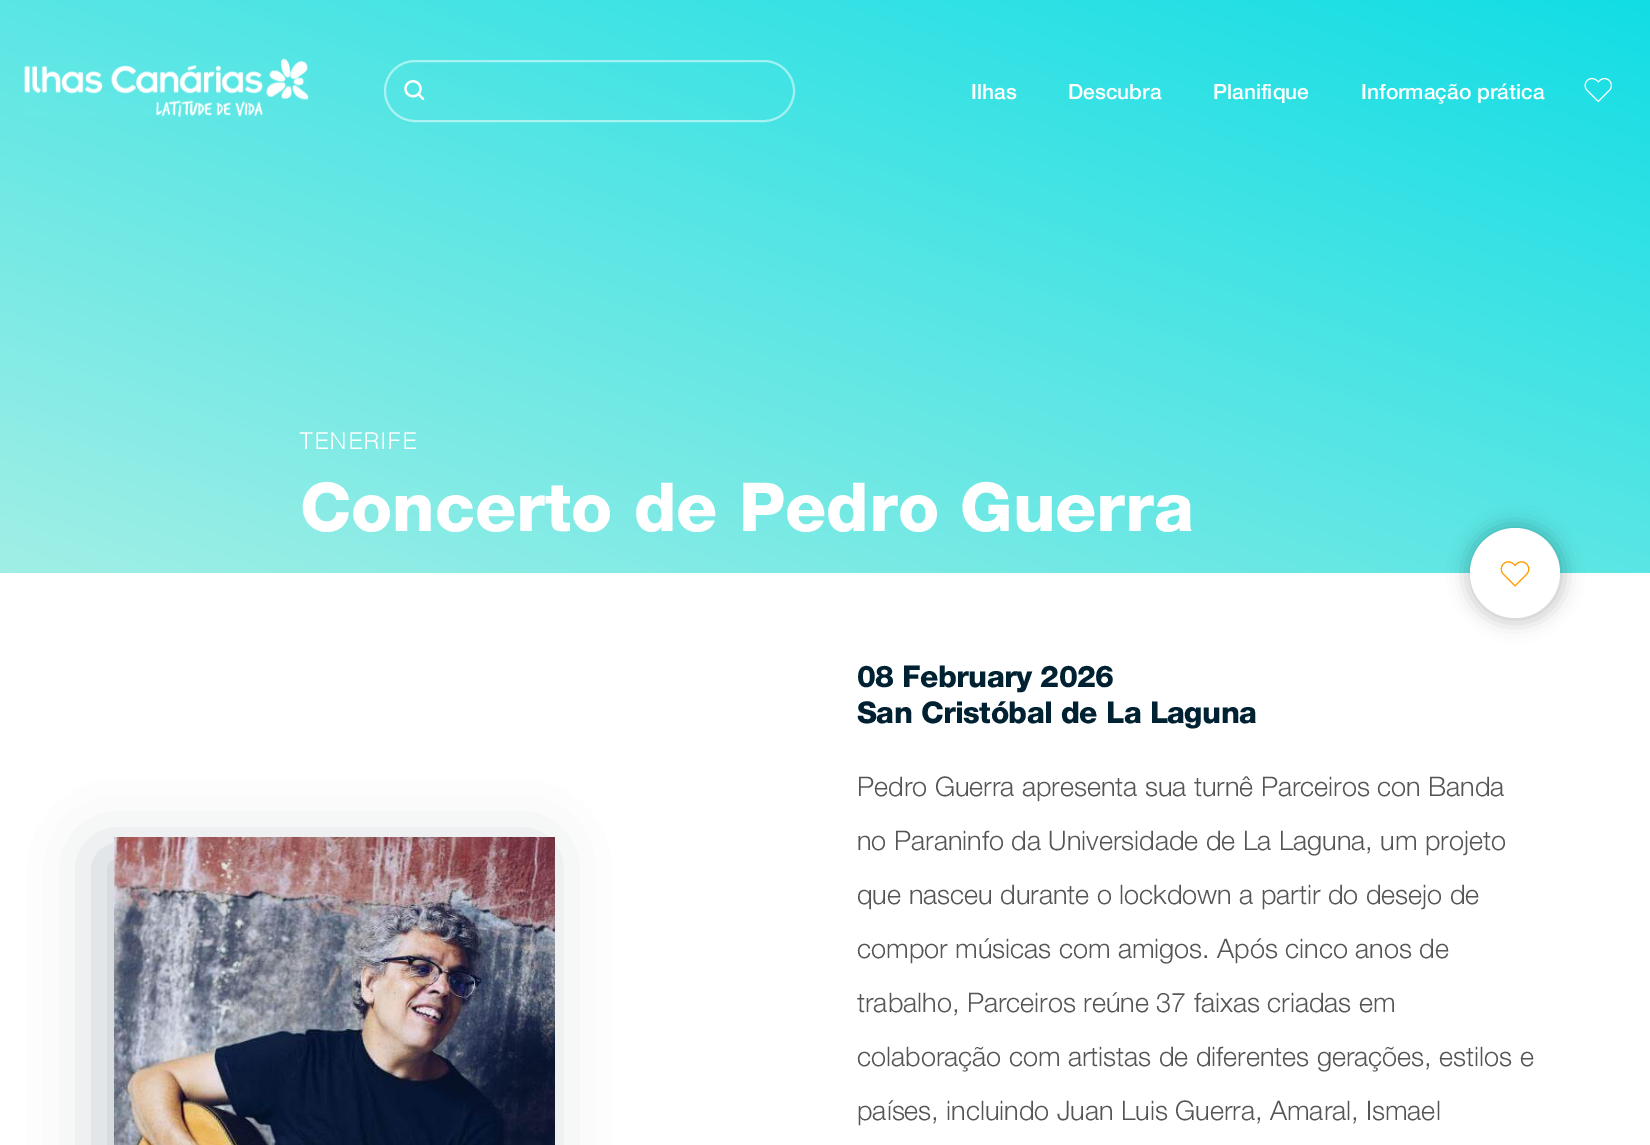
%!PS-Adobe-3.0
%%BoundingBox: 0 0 1650 1145
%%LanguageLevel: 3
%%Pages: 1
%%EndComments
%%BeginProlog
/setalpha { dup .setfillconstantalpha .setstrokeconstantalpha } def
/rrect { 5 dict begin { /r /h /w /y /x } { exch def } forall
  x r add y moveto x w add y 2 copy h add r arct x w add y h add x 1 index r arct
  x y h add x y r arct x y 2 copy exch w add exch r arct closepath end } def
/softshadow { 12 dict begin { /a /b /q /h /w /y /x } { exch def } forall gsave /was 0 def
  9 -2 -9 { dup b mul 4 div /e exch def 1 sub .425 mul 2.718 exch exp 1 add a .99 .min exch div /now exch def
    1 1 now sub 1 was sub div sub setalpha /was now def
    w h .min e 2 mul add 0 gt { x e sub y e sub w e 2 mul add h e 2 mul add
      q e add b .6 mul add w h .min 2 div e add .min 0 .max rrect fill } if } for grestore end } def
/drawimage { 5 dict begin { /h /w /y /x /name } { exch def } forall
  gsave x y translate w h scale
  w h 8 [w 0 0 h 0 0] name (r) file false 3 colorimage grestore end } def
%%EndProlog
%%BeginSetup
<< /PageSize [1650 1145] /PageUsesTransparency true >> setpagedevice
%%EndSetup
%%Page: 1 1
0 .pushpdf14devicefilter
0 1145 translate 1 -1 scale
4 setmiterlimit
1 setgray
0 0 1650 1145 rectfill
gsave newpath 0 0 moveto 1650 0 lineto 1650 573 lineto 0 573 lineto closepath clip newpath
<< /ShadingType 2 /ColorSpace /DeviceRGB /Coords [647 798 1003 -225] /Extend [true true] /Function << /FunctionType 2 /Domain [0 1] /C0 [0.631 0.937 0.898] /C1 [0.071 0.867 0.894] /N 1 >> >> shfill grestore
(images/1.raw) 24 58 285 59 drawimage
0.5 setalpha
2 setlinewidth
385 61 409 60 30 rrect stroke
1 setalpha
(images/2.raw) 404 80 21 20 drawimage
(images/3.raw) 1584 77 28 26 drawimage
0 setgray
1466 524 99 99 49.5 9 0.21 softshadow
1 setgray
newpath 1515 573 45 0 360 arc closepath fill
(images/4.raw) 1500 561 30 26 drawimage
0.012 0.141 0.2 setrgbcolor
99 851 441 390 0 32 0.22 softshadow
(images/5.raw) 114 837 441 308 drawimage
/HelveticaNeue-Medium [21 0 0 -21 0 0] selectfont
1 setgray
971 99 moveto (Ilhas) show
1068 99 moveto (Descubra) show
1213 99 moveto (Planifique) show
1361 99 moveto (Informação prática) show
/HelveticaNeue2-Bold [22.5 0 0 -22.5 0 0] selectfont
300 449 moveto 3 0 (TENERIFE) ashow
/HelveticaNeue-Bold [67.5 0 0 -67.5 0 0] selectfont
300 531 moveto (Concerto de Pedro Guerra) show
/HelveticaNeue-Bold [30 0 0 -30 0 0] selectfont
0 0.129 0.196 setrgbcolor
857 687 moveto -0.6 0 (08 February 2026) ashow
857 723 moveto -0.6 0 (San Cristóbal de La Laguna) ashow
/HelveticaNeue-Light [27 0 0 -27 0 0] selectfont
0.333 setgray
857 796 moveto (Pedro Guerra apresenta sua turnê Parceiros con Banda) show
857 850 moveto (no Paraninfo da Universidade de La Laguna, um projeto) show
857 904 moveto (que nasceu durante o lockdown a partir do desejo de) show
857 958 moveto (compor músicas com amigos. Após cinco anos de) show
857 1012 moveto (trabalho, Parceiros reúne 37 faixas criadas em) show
857 1066 moveto (colaboração com artistas de diferentes gerações, estilos e) show
857 1120 moveto (países, incluindo Juan Luis Guerra, Amaral, Ismael) show
.poppdf14devicefilter showpage
%%EOF
